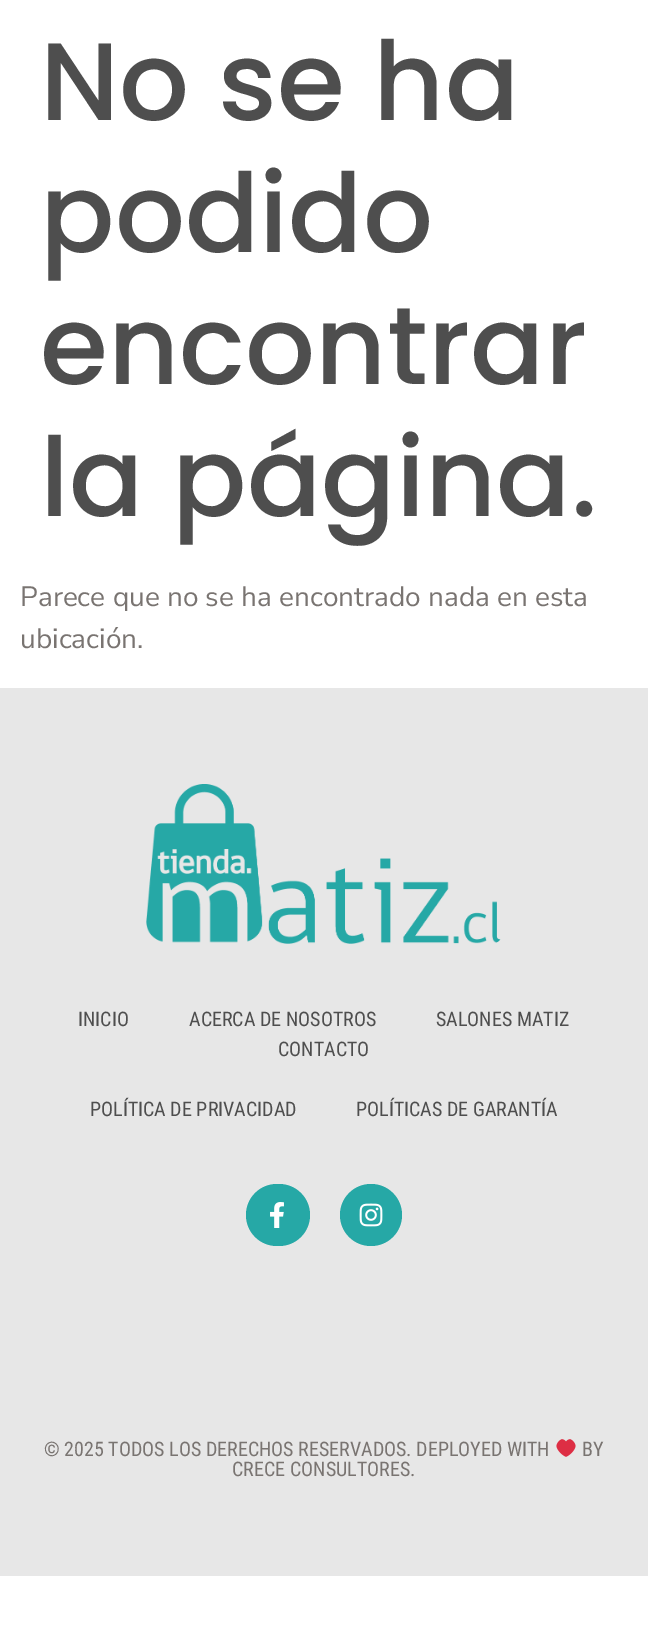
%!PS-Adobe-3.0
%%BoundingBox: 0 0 648 1650
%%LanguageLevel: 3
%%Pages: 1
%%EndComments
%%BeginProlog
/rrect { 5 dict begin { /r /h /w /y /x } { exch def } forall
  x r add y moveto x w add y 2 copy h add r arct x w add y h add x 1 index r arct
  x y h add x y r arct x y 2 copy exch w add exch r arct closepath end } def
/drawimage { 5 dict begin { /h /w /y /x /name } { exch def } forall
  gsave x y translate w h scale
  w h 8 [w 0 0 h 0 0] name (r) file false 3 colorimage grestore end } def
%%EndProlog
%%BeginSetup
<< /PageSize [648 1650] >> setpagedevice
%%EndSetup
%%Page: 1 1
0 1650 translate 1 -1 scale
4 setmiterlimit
1 setgray
0 0 648 1650 rectfill
0.906 setgray
0 688 648 888 rectfill
(images/1.raw) 146 784 355 160 drawimage
0.149 0.659 0.651 setrgbcolor
246 1184 64 62 31 rrect fill
(images/2.raw) 270 1202 14 26 drawimage
newpath 371 1215 31 0 360 arc closepath fill
(images/3.raw) 359 1203 24 24 drawimage
(images/4.raw) 556 1439 20 18 drawimage
/Poppins-Medium [110 0 0 -110 0 0] selectfont
0.306 setgray
40 120 moveto (No se ha) show
40 252 moveto (podido) show
40 384 moveto (encontrar) show
40 516 moveto (la página.) show
/NunitoSans-Regular [28 0 0 -28 0 0] selectfont
0.475 0.455 0.443 setrgbcolor
20 606 moveto (Parece que no se ha encontrado nada en esta) show
20 648 moveto (ubicación.) show
/RobotoCondensed-Regular [20 0 0 -20 0 0] selectfont
0.306 setgray
78 1026 moveto (INICIO) show
189 1026 moveto (ACERCA DE NOSOTROS) show
436 1026 moveto (SALONES MATIZ) show
278 1056 moveto (CONTACTO) show
90 1116 moveto (POLÍTICA DE PRIVACIDAD) show
356 1116 moveto (POLÍTICAS DE GARANTÍA) show
0.475 0.455 0.443 setrgbcolor
44 1456 moveto (© 2025 TODOS LOS DERECHOS RESERVADOS. DEPLOYED WITH) show
582 1456 moveto (BY) show
232 1476 moveto (CRECE CONSULTORES.) show
showpage
%%EOF
